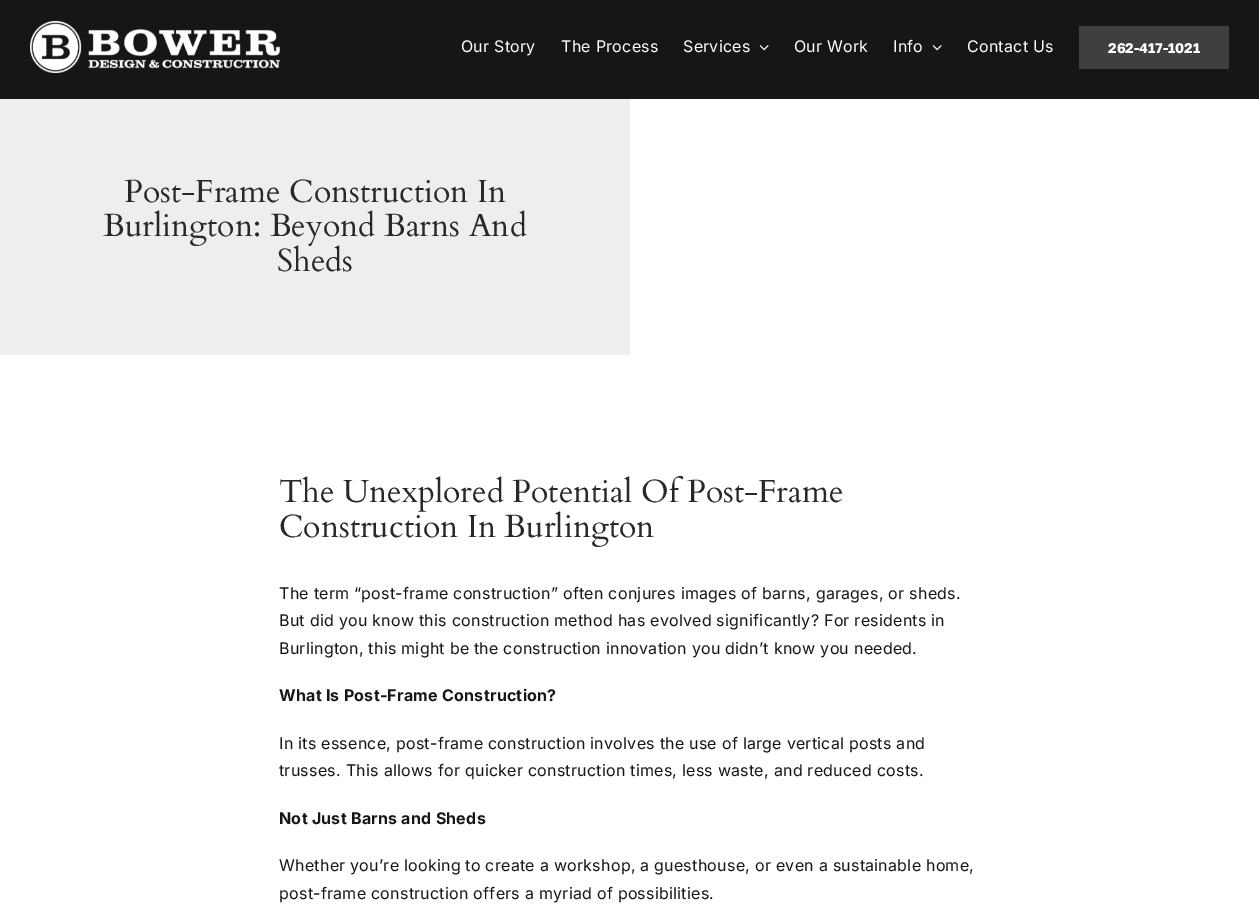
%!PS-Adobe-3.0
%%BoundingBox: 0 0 1259 914
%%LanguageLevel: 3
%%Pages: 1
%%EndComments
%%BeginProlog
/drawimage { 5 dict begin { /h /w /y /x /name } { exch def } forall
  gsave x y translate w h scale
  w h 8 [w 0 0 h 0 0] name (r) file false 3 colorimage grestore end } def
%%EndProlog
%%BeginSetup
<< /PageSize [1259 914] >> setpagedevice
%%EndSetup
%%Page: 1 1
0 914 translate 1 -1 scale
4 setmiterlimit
1 setgray
0 0 1259 914 rectfill
0.086 setgray
0 0 1259 99 rectfill
(images/1.raw) 30 21 250 52 drawimage
(images/2.raw) 759 45 10 6 drawimage
(images/2.raw) 932 45 10 6 drawimage
0.247 setgray
1079 26 150 43 rectfill
0.933 setgray
0 99 630 256 rectfill
/Inter-Regular [16 0 0 -16 0 0] selectfont
1 setgray
461 52 moveto 0.25 0 (Our Story) ashow
561 52 moveto 0.25 0 (The Process) ashow
683 52 moveto 0.25 0 (Services) ashow
794 52 moveto 0.25 0 (Our Work) ashow
893 52 moveto 0.25 0 (Info) ashow
967 52 moveto 0.25 0 (Contact Us) ashow
/GolosText-Bold [14 0 0 -14 0 0] selectfont
1108 53 moveto (262-417-1021) show
/Cardo-Regular [32 0 0 -32 0 0] selectfont
0.161 0.157 0.137 setrgbcolor
124 202 moveto (Post-Frame Construction In) show
103 236 moveto (Burlington: Beyond Barns And) show
277 271 moveto (Sheds) show
279 502 moveto (The Unexplored Potential Of Post-Frame) show
279 537 moveto (Construction In Burlington) show
/Inter-Regular [16 0 0 -16 0 0] selectfont
0.086 setgray
279 599 moveto 0.25 0 (The term “post-frame construction” often conjures images of barns, garages, or sheds.) ashow
279 626 moveto 0.25 0 (But did you know this construction method has evolved significantly? For residents in) ashow
279 654 moveto 0.25 0 (Burlington, this might be the construction innovation you didn’t know you needed.) ashow
/Inter-Bold [16 0 0 -16 0 0] selectfont
279 701 moveto 0.25 0 (What Is Post-Frame Construction?) ashow
/Inter-Regular [16 0 0 -16 0 0] selectfont
279 749 moveto 0.25 0 (In its essence, post-frame construction involves the use of large vertical posts and) ashow
279 776 moveto 0.25 0 (trusses. This allows for quicker construction times, less waste, and reduced costs.) ashow
/Inter-Bold [16 0 0 -16 0 0] selectfont
279 824 moveto 0.25 0 (Not Just Barns and Sheds) ashow
/Inter-Regular [16 0 0 -16 0 0] selectfont
279 871 moveto 0.25 0 (Whether you’re looking to create a workshop, a guesthouse, or even a sustainable home,) ashow
279 899 moveto 0.25 0 (post-frame construction offers a myriad of possibilities.) ashow
showpage
%%EOF
